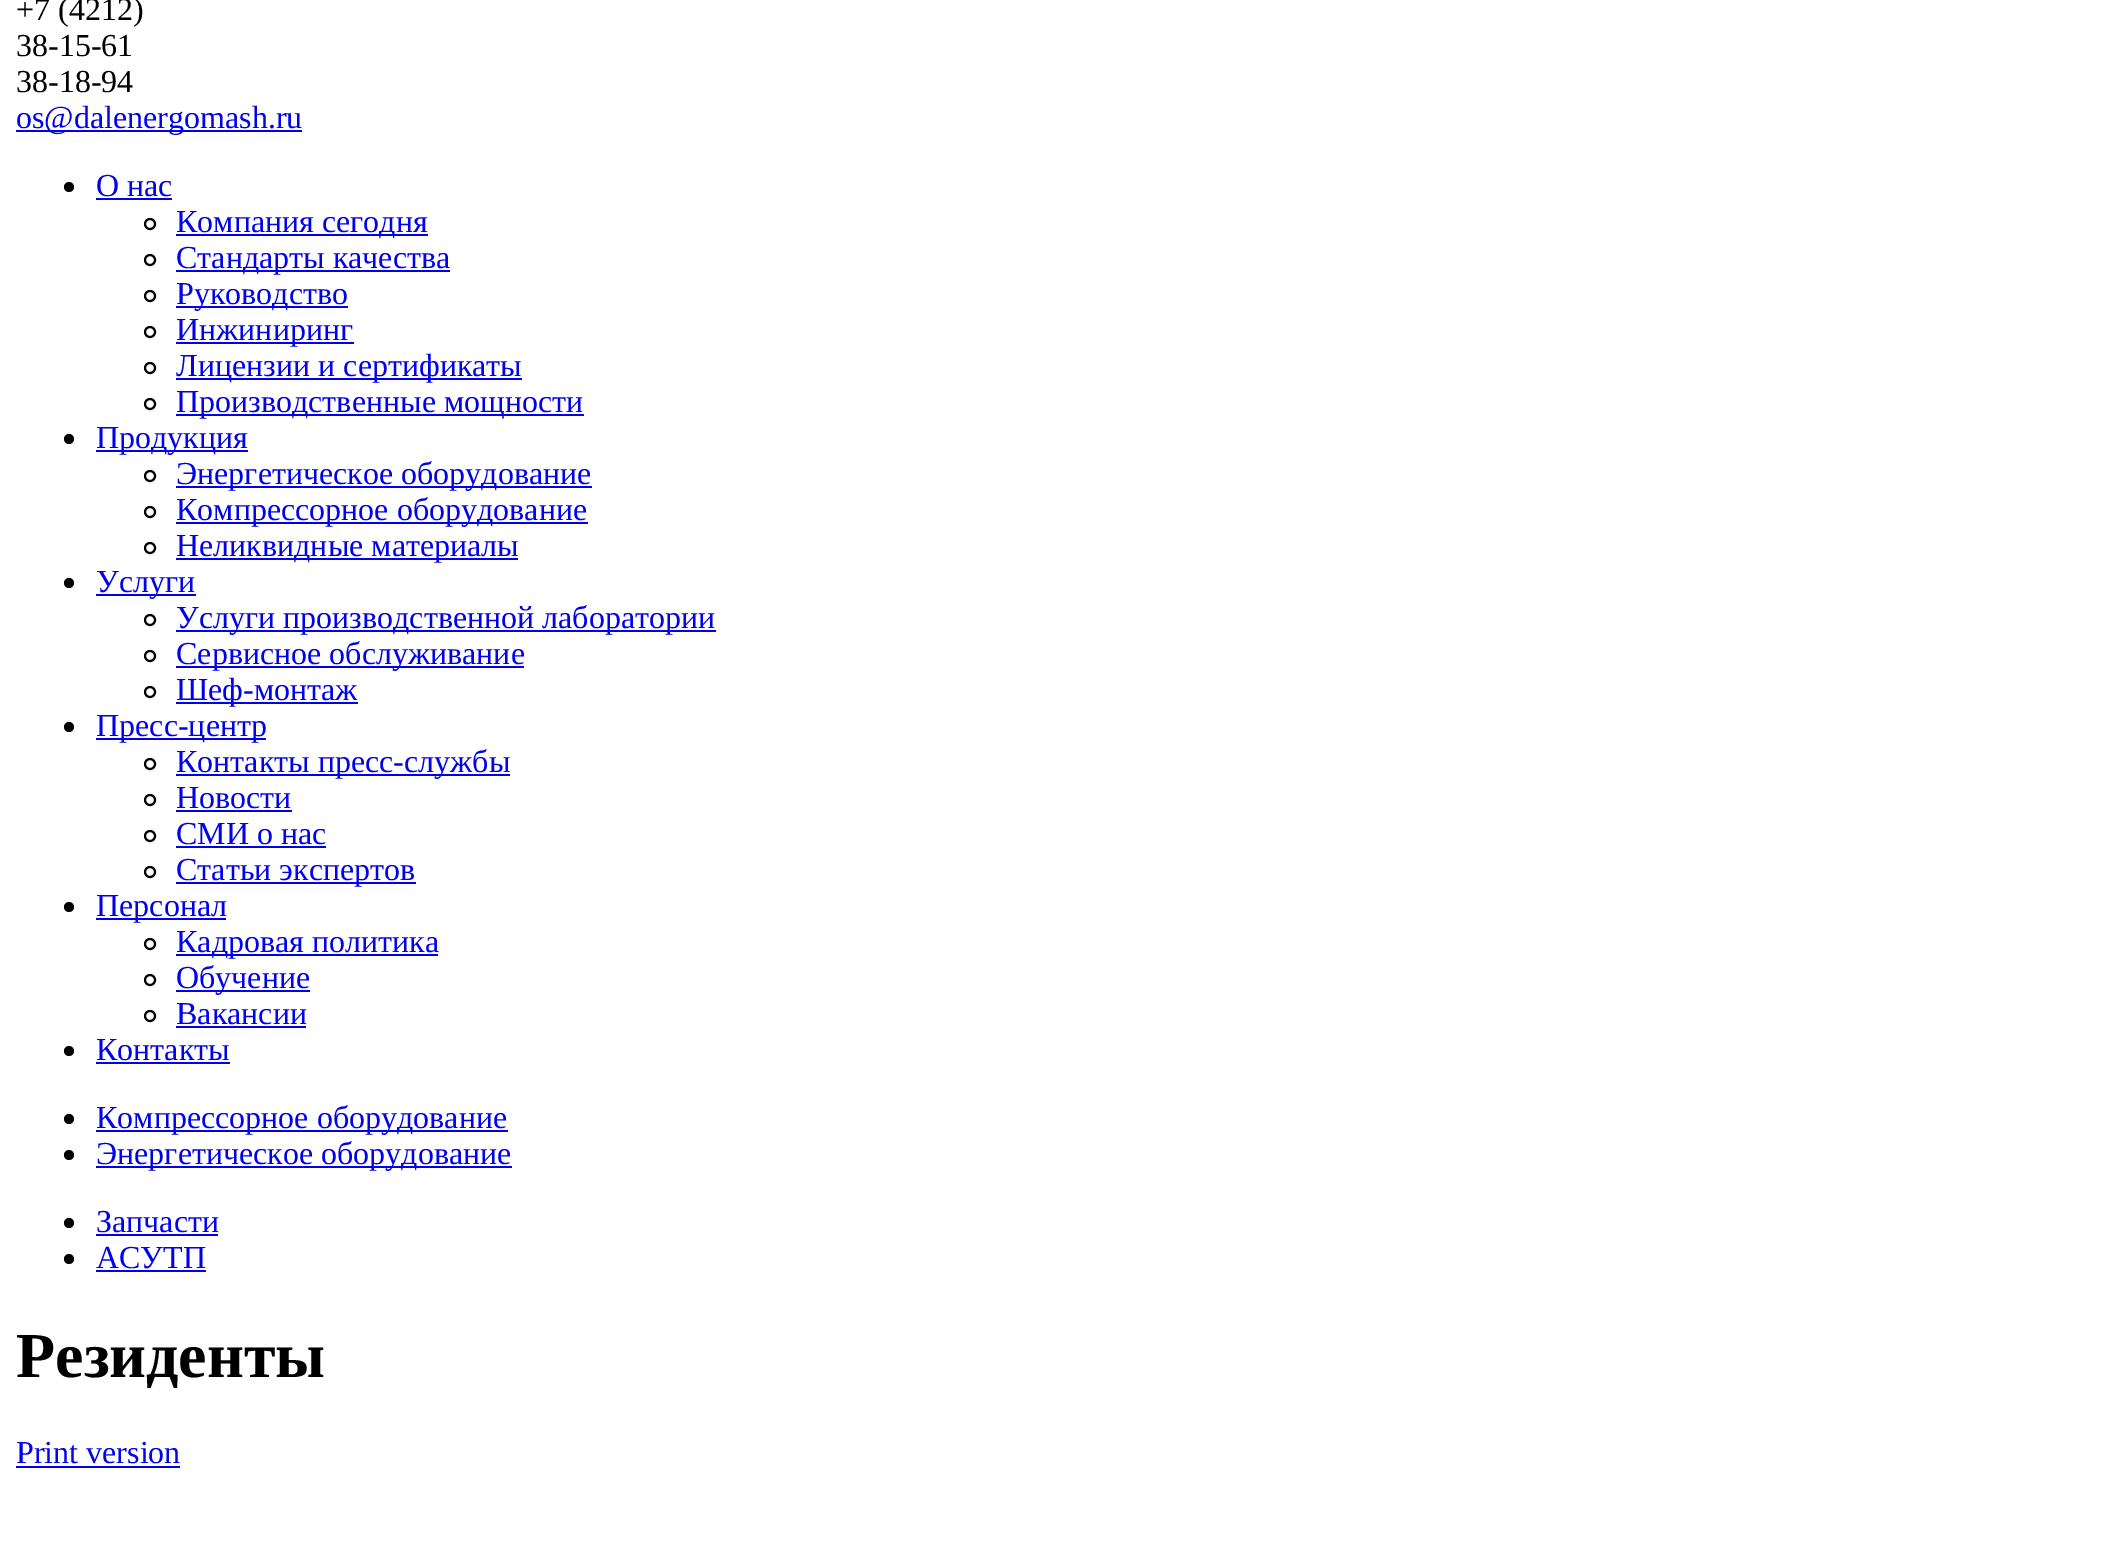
%!PS-Adobe-3.0
%%BoundingBox: 0 0 2120 1560
%%LanguageLevel: 3
%%Pages: 1
%%EndComments
%%BeginProlog
%%EndProlog
%%BeginSetup
<< /PageSize [2120 1560] >> setpagedevice
%%EndSetup
%%Page: 1 1
0 1560 translate 1 -1 scale
4 setmiterlimit
1 setgray
0 0 2120 1560 rectfill
0 0 0.933 setrgbcolor
16 130 286 2 rectfill
0 setgray
newpath 69 187 5 0 360 arc closepath fill
0 0 0.933 setrgbcolor
96 198 76 2 rectfill
0 setgray
2 setlinewidth
newpath 150 224 5 0 360 arc closepath stroke
0 0 0.933 setrgbcolor
176 234 252 2 rectfill
0 setgray
newpath 150 260 5 0 360 arc closepath stroke
0 0 0.933 setrgbcolor
176 270 274 2 rectfill
0 setgray
newpath 150 296 5 0 360 arc closepath stroke
0 0 0.933 setrgbcolor
176 306 172 2 rectfill
0 setgray
newpath 150 332 5 0 360 arc closepath stroke
0 0 0.933 setrgbcolor
176 342 178 2 rectfill
0 setgray
newpath 150 368 5 0 360 arc closepath stroke
0 0 0.933 setrgbcolor
176 378 346 2 rectfill
0 setgray
newpath 150 404 5 0 360 arc closepath stroke
0 0 0.933 setrgbcolor
176 414 408 2 rectfill
0 setgray
newpath 69 439 5 0 360 arc closepath fill
0 0 0.933 setrgbcolor
96 450 152 2 rectfill
0 setgray
newpath 150 476 5 0 360 arc closepath stroke
0 0 0.933 setrgbcolor
176 486 416 2 rectfill
0 setgray
newpath 150 512 5 0 360 arc closepath stroke
0 0 0.933 setrgbcolor
176 522 412 2 rectfill
0 setgray
newpath 150 548 5 0 360 arc closepath stroke
0 0 0.933 setrgbcolor
176 558 342 2 rectfill
0 setgray
newpath 69 583 5 0 360 arc closepath fill
0 0 0.933 setrgbcolor
96 594 100 2 rectfill
0 setgray
newpath 150 620 5 0 360 arc closepath stroke
0 0 0.933 setrgbcolor
176 630 540 2 rectfill
0 setgray
newpath 150 656 5 0 360 arc closepath stroke
0 0 0.933 setrgbcolor
176 666 348 2 rectfill
0 setgray
newpath 150 692 5 0 360 arc closepath stroke
0 0 0.933 setrgbcolor
176 702 182 2 rectfill
0 setgray
newpath 69 727 5 0 360 arc closepath fill
0 0 0.933 setrgbcolor
96 738 170 2 rectfill
0 setgray
newpath 150 764 5 0 360 arc closepath stroke
0 0 0.933 setrgbcolor
176 774 334 2 rectfill
0 setgray
newpath 150 800 5 0 360 arc closepath stroke
0 0 0.933 setrgbcolor
176 810 116 2 rectfill
0 setgray
newpath 150 836 5 0 360 arc closepath stroke
0 0 0.933 setrgbcolor
176 846 150 2 rectfill
0 setgray
newpath 150 872 5 0 360 arc closepath stroke
0 0 0.933 setrgbcolor
176 882 240 2 rectfill
0 setgray
newpath 69 907 5 0 360 arc closepath fill
0 0 0.933 setrgbcolor
96 918 130 2 rectfill
0 setgray
newpath 150 944 5 0 360 arc closepath stroke
0 0 0.933 setrgbcolor
176 954 262 2 rectfill
0 setgray
newpath 150 980 5 0 360 arc closepath stroke
0 0 0.933 setrgbcolor
176 990 134 2 rectfill
0 setgray
newpath 150 1016 5 0 360 arc closepath stroke
0 0 0.933 setrgbcolor
176 1026 130 2 rectfill
0 setgray
newpath 69 1051 5 0 360 arc closepath fill
0 0 0.933 setrgbcolor
96 1062 134 2 rectfill
0 setgray
newpath 69 1119 5 0 360 arc closepath fill
0 0 0.933 setrgbcolor
96 1130 412 2 rectfill
0 setgray
newpath 69 1155 5 0 360 arc closepath fill
0 0 0.933 setrgbcolor
96 1166 416 2 rectfill
0 setgray
newpath 69 1223 5 0 360 arc closepath fill
0 0 0.933 setrgbcolor
96 1234 122 2 rectfill
0 setgray
newpath 69 1259 5 0 360 arc closepath fill
0 0 0.933 setrgbcolor
96 1270 110 2 rectfill
16 1466 164 2 rectfill
/LiberationSerif-Regular [32 0 0 -32 0 0] selectfont
0 setgray
16 20 moveto (+7 \(4212\)) show
16 56 moveto (38-15-61) show
16 92 moveto (38-18-94) show
0 0 0.933 setrgbcolor
16 128 moveto (os@dalenergomash.ru) show
96 196 moveto (О нас) show
176 232 moveto (Компания сегодня) show
176 268 moveto (Стандарты качества) show
176 304 moveto (Руководство) show
176 340 moveto (Инжиниринг) show
176 376 moveto (Лицензии и сертификаты) show
176 412 moveto (Производственные мощности) show
96 448 moveto (Продукция) show
176 484 moveto (Энергетическое оборудование) show
176 520 moveto (Компрессорное оборудование) show
176 556 moveto (Неликвидные материалы) show
96 592 moveto (Услуги) show
176 628 moveto (Услуги производственной лаборатории) show
176 664 moveto (Сервисное обслуживание) show
176 700 moveto (Шеф-монтаж) show
96 736 moveto (Пресс-центр) show
176 772 moveto (Контакты пресс-службы) show
176 808 moveto (Новости) show
176 844 moveto (СМИ о нас) show
176 880 moveto (Статьи экспертов) show
96 916 moveto (Персонал) show
176 952 moveto (Кадровая политика) show
176 988 moveto (Обучение) show
176 1024 moveto (Вакансии) show
96 1060 moveto (Контакты) show
96 1128 moveto (Компрессорное оборудование) show
96 1164 moveto (Энергетическое оборудование) show
96 1232 moveto (Запчасти) show
96 1268 moveto (АСУТП) show
/LiberationSerif-Bold [64 0 0 -64 0 0] selectfont
0 setgray
16 1377 moveto (Резиденты) show
/LiberationSerif-Regular [32 0 0 -32 0 0] selectfont
0 0 0.933 setrgbcolor
16 1463 moveto (Print version) show
showpage
%%EOF
